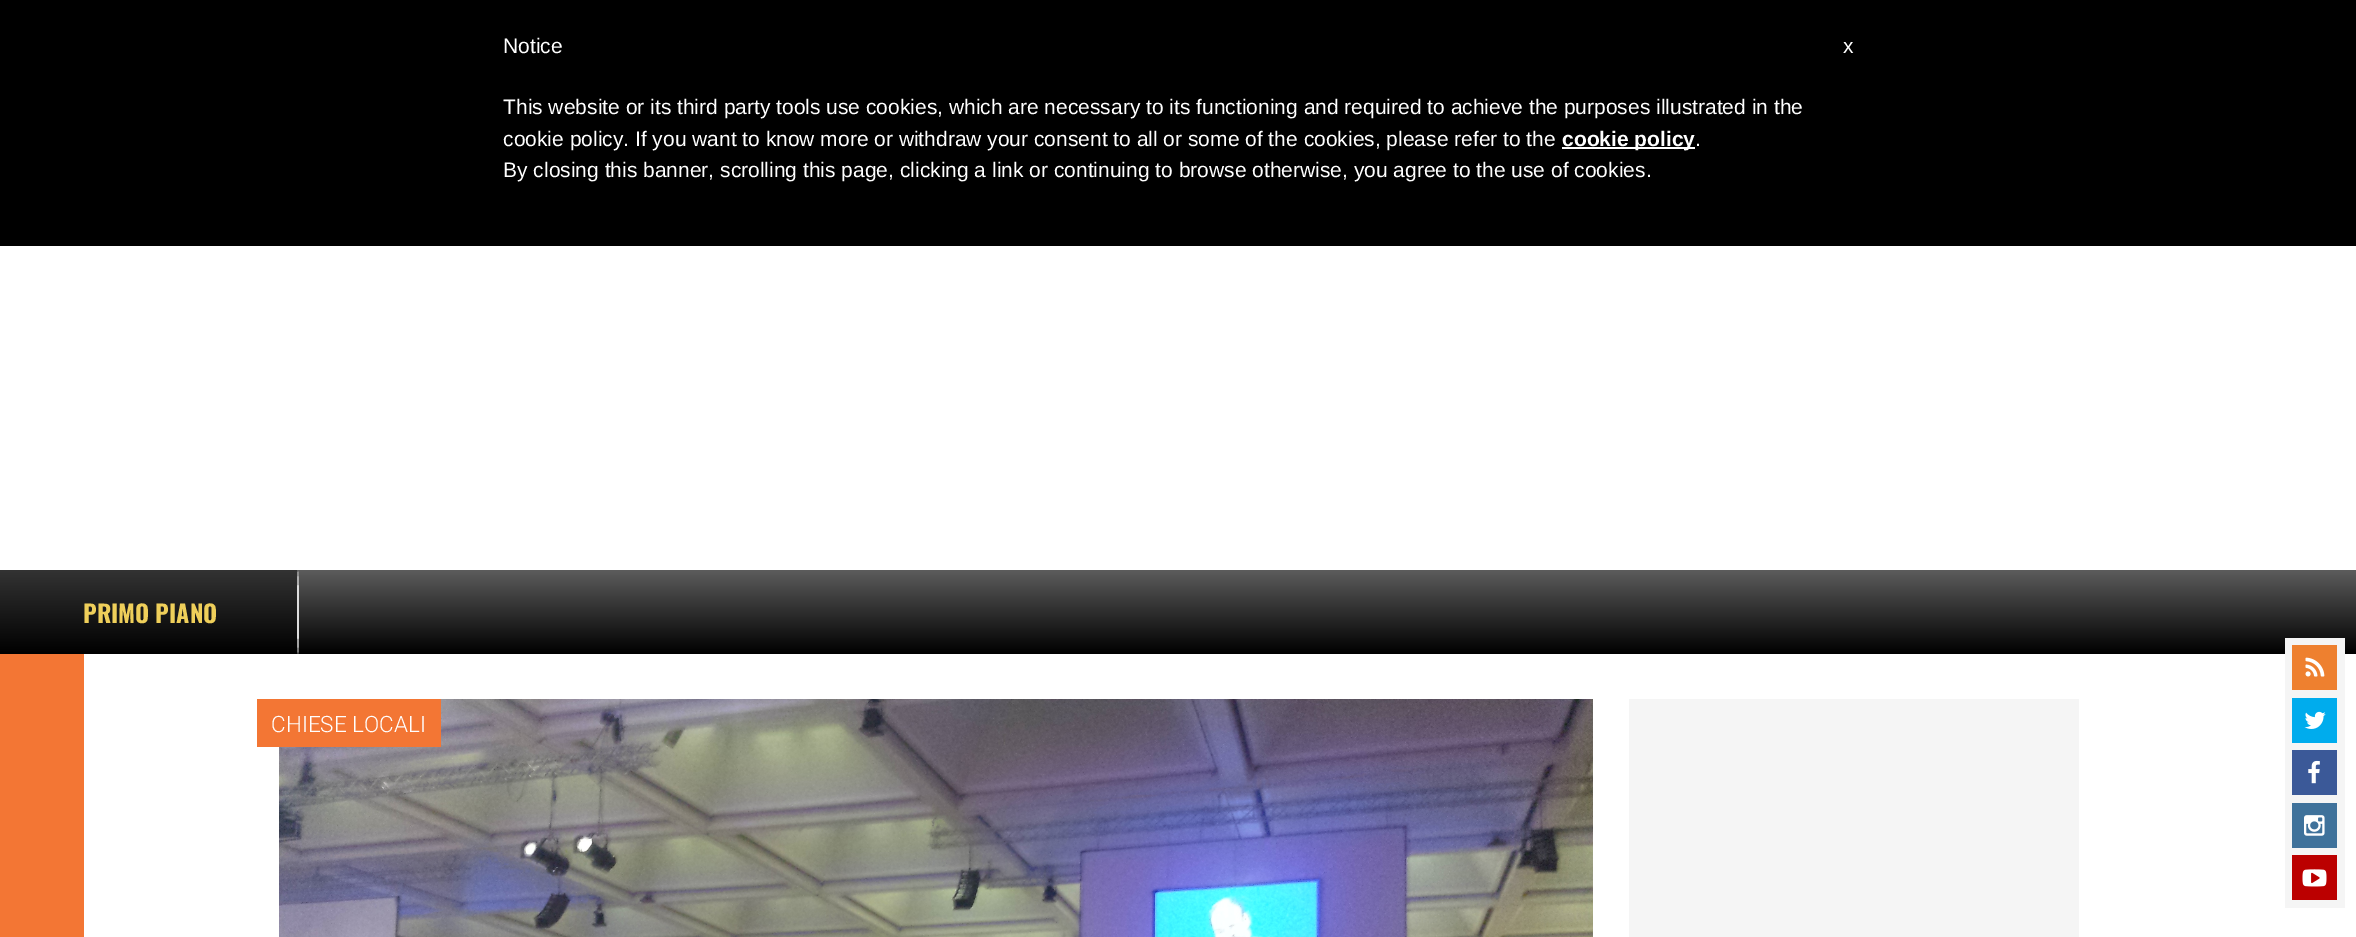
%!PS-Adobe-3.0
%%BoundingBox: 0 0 2356 937
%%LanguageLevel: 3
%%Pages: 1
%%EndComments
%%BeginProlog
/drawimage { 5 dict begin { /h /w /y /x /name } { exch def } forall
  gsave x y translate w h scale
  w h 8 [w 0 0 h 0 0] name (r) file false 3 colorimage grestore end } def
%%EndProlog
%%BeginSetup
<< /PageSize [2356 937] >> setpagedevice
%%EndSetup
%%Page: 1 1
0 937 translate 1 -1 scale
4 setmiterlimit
1 setgray
0 0 2356 937 rectfill
0 setgray
0 0 2356 246 rectfill
1 setgray
1562 147 133 2 rectfill
gsave newpath 299 570 moveto 2356 570 lineto 2356 654 lineto 299 654 lineto closepath clip newpath
<< /ShadingType 2 /ColorSpace /DeviceRGB /Coords [1178 570 1178 654] /Extend [true true] /Function << /FunctionType 2 /Domain [0 1] /C0 [0.361 0.361 0.361] /C1 [0 0 0] /N 1 >> >> shfill grestore
gsave newpath 0 570 moveto 299 570 lineto 299 654 lineto 0 654 lineto closepath clip newpath
<< /ShadingType 2 /ColorSpace /DeviceRGB /Coords [149 570 149 654] /Extend [true true] /Function << /FunctionType 2 /Domain [0 1] /C0 [0.2 0.2 0.2] /C1 [0 0 0] /N 1 >> >> shfill grestore
0.867 setgray
newpath 298 570 moveto 298.5 570 299 589 299 612 curveto 299 635 298.5 654 298 654 curveto 297.5 654 297 635 297 612 curveto 297 589 297.5 570 298 570 curveto closepath fill
0.953 0.463 0.204 setrgbcolor
0 654 84 283 rectfill
(images/1.raw) 279 699 1314 238 drawimage
257 699 184 48 rectfill
0.961 setgray
1629 699 450 238 rectfill
2285 638 60 270 rectfill
0.933 0.502 0.184 setrgbcolor
2292 645 45 45 rectfill
(images/2.raw) 2305 657 20 20 drawimage
0 0.675 0.929 setrgbcolor
2292 698 45 45 rectfill
(images/3.raw) 2304 711 22 18 drawimage
0.231 0.349 0.596 setrgbcolor
2292 750 45 45 rectfill
(images/4.raw) 2308 760 12 24 drawimage
0.247 0.447 0.608 setrgbcolor
2292 803 45 45 rectfill
(images/5.raw) 2304 815 21 21 drawimage
0.733 0 0 setrgbcolor
2292 855 45 45 rectfill
(images/6.raw) 2302 869 25 18 drawimage
/LiberationSans-Regular [21 0 0 -21 0 0] selectfont
1 setgray
503 53 moveto (Notice) show
503 114 moveto (This website or its third party tools use cookies, which are necessary to its functioning and required to achieve the purposes illustrated in the) show
503 146 moveto (cookie policy. If you want to know more or withdraw your consent to all or some of the cookies, please refer to the) show
/LiberationSans-Bold [21 0 0 -21 0 0] selectfont
1562 146 moveto (cookie policy) show
/LiberationSans-Regular [21 0 0 -21 0 0] selectfont
1695 146 moveto (.) show
503 177 moveto (By closing this banner, scrolling this page, clicking a link or continuing to browse otherwise, you agree to the use of cookies.) show
1843 53 moveto (x) show
/Oswald-Bold [24 0 0 -24 0 0] selectfont
0.937 0.812 0.353 setrgbcolor
83 623 moveto (PRIMO PIANO) show
/Roboto-Light [22.5 0 0 -22.5 0 0] selectfont
1 setgray
271 732 moveto (CHIESE LOCALI) show
showpage
%%EOF
